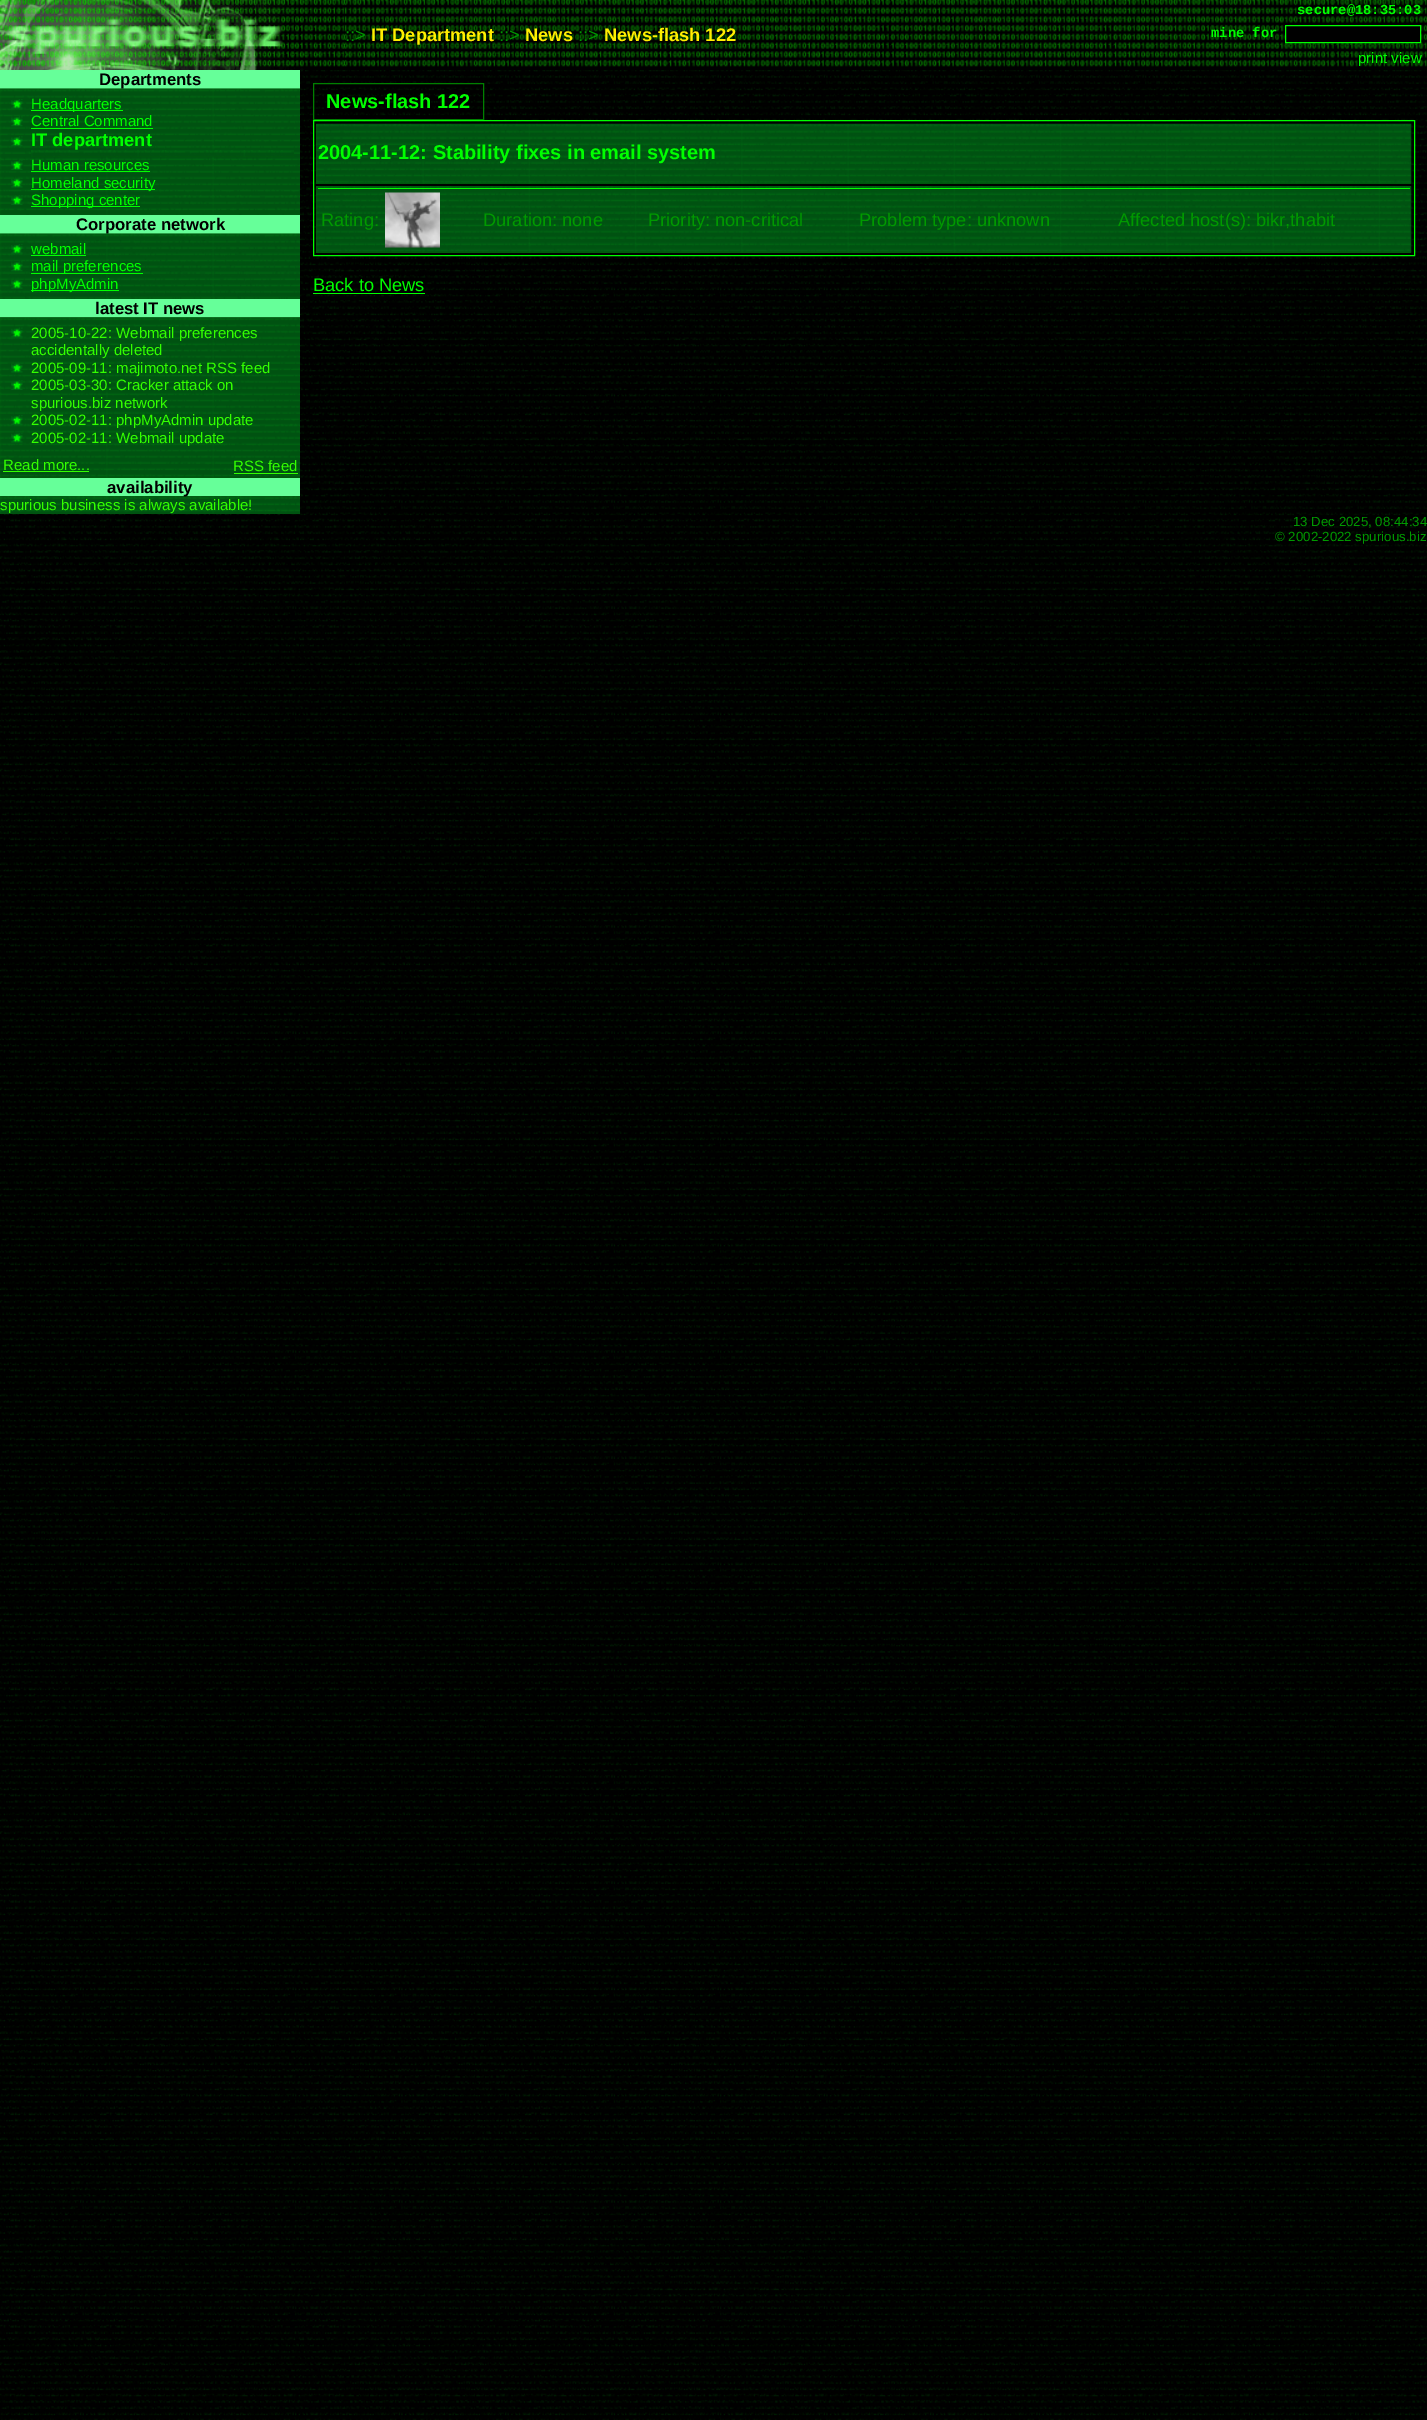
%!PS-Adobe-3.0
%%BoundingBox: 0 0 1427 2420
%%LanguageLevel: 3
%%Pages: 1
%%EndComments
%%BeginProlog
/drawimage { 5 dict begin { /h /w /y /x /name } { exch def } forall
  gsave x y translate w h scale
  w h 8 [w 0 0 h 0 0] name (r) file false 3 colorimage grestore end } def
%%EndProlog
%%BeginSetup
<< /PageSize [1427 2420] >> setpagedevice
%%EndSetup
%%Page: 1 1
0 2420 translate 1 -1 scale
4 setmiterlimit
1 setgray
0 0 1427 2420 rectfill
(images/1.raw) 0 70 1427 2350 drawimage
(images/2.raw) 345 0 1082 70 drawimage
(images/3.raw) 0 0 345 70 drawimage
0 setgray
1286 26 134 15 rectfill
0 1 0 setrgbcolor
1285.5 25.5 135 17 rectstroke
0.4 1 0.6 setrgbcolor
0 70 300 19 rectfill
(images/4.raw) 0 88 300 127 drawimage
(images/5.raw) 11 99 12 10 drawimage
0 1 0 setrgbcolor
31 110 92 1 rectfill
(images/6.raw) 11 116 12 11 drawimage
31 128 122 1 rectfill
(images/7.raw) 11 136 12 11 drawimage
(images/8.raw) 31 150 263 7 drawimage
(images/9.raw) 11 160 12 10 drawimage
31 171 119 1 rectfill
(images/10.raw) 11 178 12 10 drawimage
31 189 124 1 rectfill
(images/11.raw) 11 195 12 10 drawimage
31 206 109 1 rectfill
0.4 1 0.6 setrgbcolor
0 215 300 19 rectfill
(images/12.raw) 0 233 300 66 drawimage
(images/13.raw) 11 244 12 10 drawimage
0 1 0 setrgbcolor
31 255 55 1 rectfill
(images/14.raw) 11 261 12 11 drawimage
31 273 112 1 rectfill
(images/15.raw) 11 280 12 9 drawimage
31 290 88 1 rectfill
0.4 1 0.6 setrgbcolor
0 299 300 19 rectfill
(images/16.raw) 0 317 300 161 drawimage
(images/17.raw) 11 327 12 11 drawimage
(images/18.raw) 11 363 12 10 drawimage
(images/19.raw) 11 380 12 10 drawimage
(images/20.raw) 11 415 12 10 drawimage
(images/21.raw) 11 433 12 10 drawimage
0.2 1 0 setrgbcolor
3 471 86 1 rectfill
234 473 64 1 rectfill
0.4 1 0.6 setrgbcolor
0 478 300 18 rectfill
(images/22.raw) 0 496 300 18 drawimage
0 0.502 0 setrgbcolor
313.5 83.5 170 36 rectstroke
0 1 0 setrgbcolor
313.5 120.5 1101 135 rectstroke
0 0.4 0 setrgbcolor
316 124 1095 60 rectfill
(images/23.raw) 316 123 1096 61 drawimage
316 186 1095 67 rectfill
(images/24.raw) 316 186 1096 67 drawimage
0 1 0 setrgbcolor
318 188 1092 1 rectfill
(images/25.raw) 385 192 55 56 drawimage
313 293 112 1 rectfill
/LiberationMono-Bold [13.75 0 0 -13.75 0 0] selectfont
1297 14 moveto (secure@18:35:03) show
/LiberationSans-Regular [18.25 0 0 -18.25 0 0] selectfont
0 0.6 0 setrgbcolor
345 41 moveto (::>) show
/LiberationSans-Bold [18.25 0 0 -18.25 0 0] selectfont
1 0.933 0 setrgbcolor
371 41 moveto (IT Department) show
/LiberationSans-Regular [18.25 0 0 -18.25 0 0] selectfont
0 0.6 0 setrgbcolor
499 41 moveto (::>) show
/LiberationSans-Bold [18.25 0 0 -18.25 0 0] selectfont
1 0.933 0 setrgbcolor
525 41 moveto (News) show
/LiberationSans-Regular [18.25 0 0 -18.25 0 0] selectfont
0 0.6 0 setrgbcolor
578 41 moveto (::>) show
/LiberationSans-Bold [18.25 0 0 -18.25 0 0] selectfont
1 0.933 0 setrgbcolor
604 41 moveto (News-flash 122) show
/LiberationMono-Bold [13.75 0 0 -13.75 0 0] selectfont
0 1 0 setrgbcolor
1211 37 moveto (mine for) show
/LiberationSans-Regular [15 0 0 -15 0 0] selectfont
1358 63 moveto (print view) show
/LiberationSans-Bold [16.75 0 0 -16.75 0 0] selectfont
0 setgray
99 85 moveto (Departments) show
/LiberationSans-Regular [15 0 0 -15 0 0] selectfont
0 1 0 setrgbcolor
31 109 moveto (Headquarters) show
31 126 moveto (Central Command) show
/LiberationSans-Bold [18.25 0 0 -18.25 0 0] selectfont
31 146 moveto (IT department) show
/LiberationSans-Regular [15 0 0 -15 0 0] selectfont
31 170 moveto (Human resources) show
31 188 moveto (Homeland security) show
31 205 moveto (Shopping center) show
/LiberationSans-Bold [16.75 0 0 -16.75 0 0] selectfont
0 setgray
76 230 moveto (Corporate network) show
/LiberationSans-Regular [15 0 0 -15 0 0] selectfont
0 1 0 setrgbcolor
31 254 moveto (webmail) show
31 271 moveto (mail preferences) show
31 289 moveto (phpMyAdmin) show
/LiberationSans-Bold [16.75 0 0 -16.75 0 0] selectfont
0 setgray
95 314 moveto (latest IT news) show
/LiberationSans-Regular [15 0 0 -15 0 0] selectfont
0.2 1 0 setrgbcolor
31 338 moveto (2005-10-22: Webmail preferences) show
31 355 moveto (accidentally deleted) show
31 373 moveto (2005-09-11: majimoto.net RSS feed) show
31 390 moveto (2005-03-30: Cracker attack on) show
31 408 moveto (spurious.biz network) show
31 425 moveto (2005-02-11: phpMyAdmin update) show
31 443 moveto (2005-02-11: Webmail update) show
3 470 moveto (Read more...) show
233 471 moveto (RSS feed) show
/LiberationSans-Bold [16.75 0 0 -16.75 0 0] selectfont
0 setgray
107 493 moveto (availability) show
/LiberationSans-Regular [15 0 0 -15 0 0] selectfont
0.2 1 0 setrgbcolor
0 510 moveto (spurious business is always available!) show
/LiberationSans-Bold [20 0 0 -20 0 0] selectfont
0 1 0 setrgbcolor
326 108 moveto (News-flash 122) show
318 159 moveto (2004-11-12: Stability fixes in email system) show
/LiberationSans-Regular [18.25 0 0 -18.25 0 0] selectfont
0 0.6 0 setrgbcolor
321 226 moveto (Rating:) show
483 226 moveto (Duration: none) show
648 226 moveto (Priority: non-critical) show
859 226 moveto (Problem type: unknown) show
1118 226 moveto (Affected host\(s\): bikr,thabit) show
0 1 0 setrgbcolor
313 291 moveto (Back to News) show
/LiberationSans-Regular [13.25 0 0 -13.25 0 0] selectfont
0 0.6 0 setrgbcolor
1293 526 moveto (13 Dec 2025, 08:44:34) show
1275 541 moveto (© 2002-2022 spurious.biz) show
showpage
%%EOF
